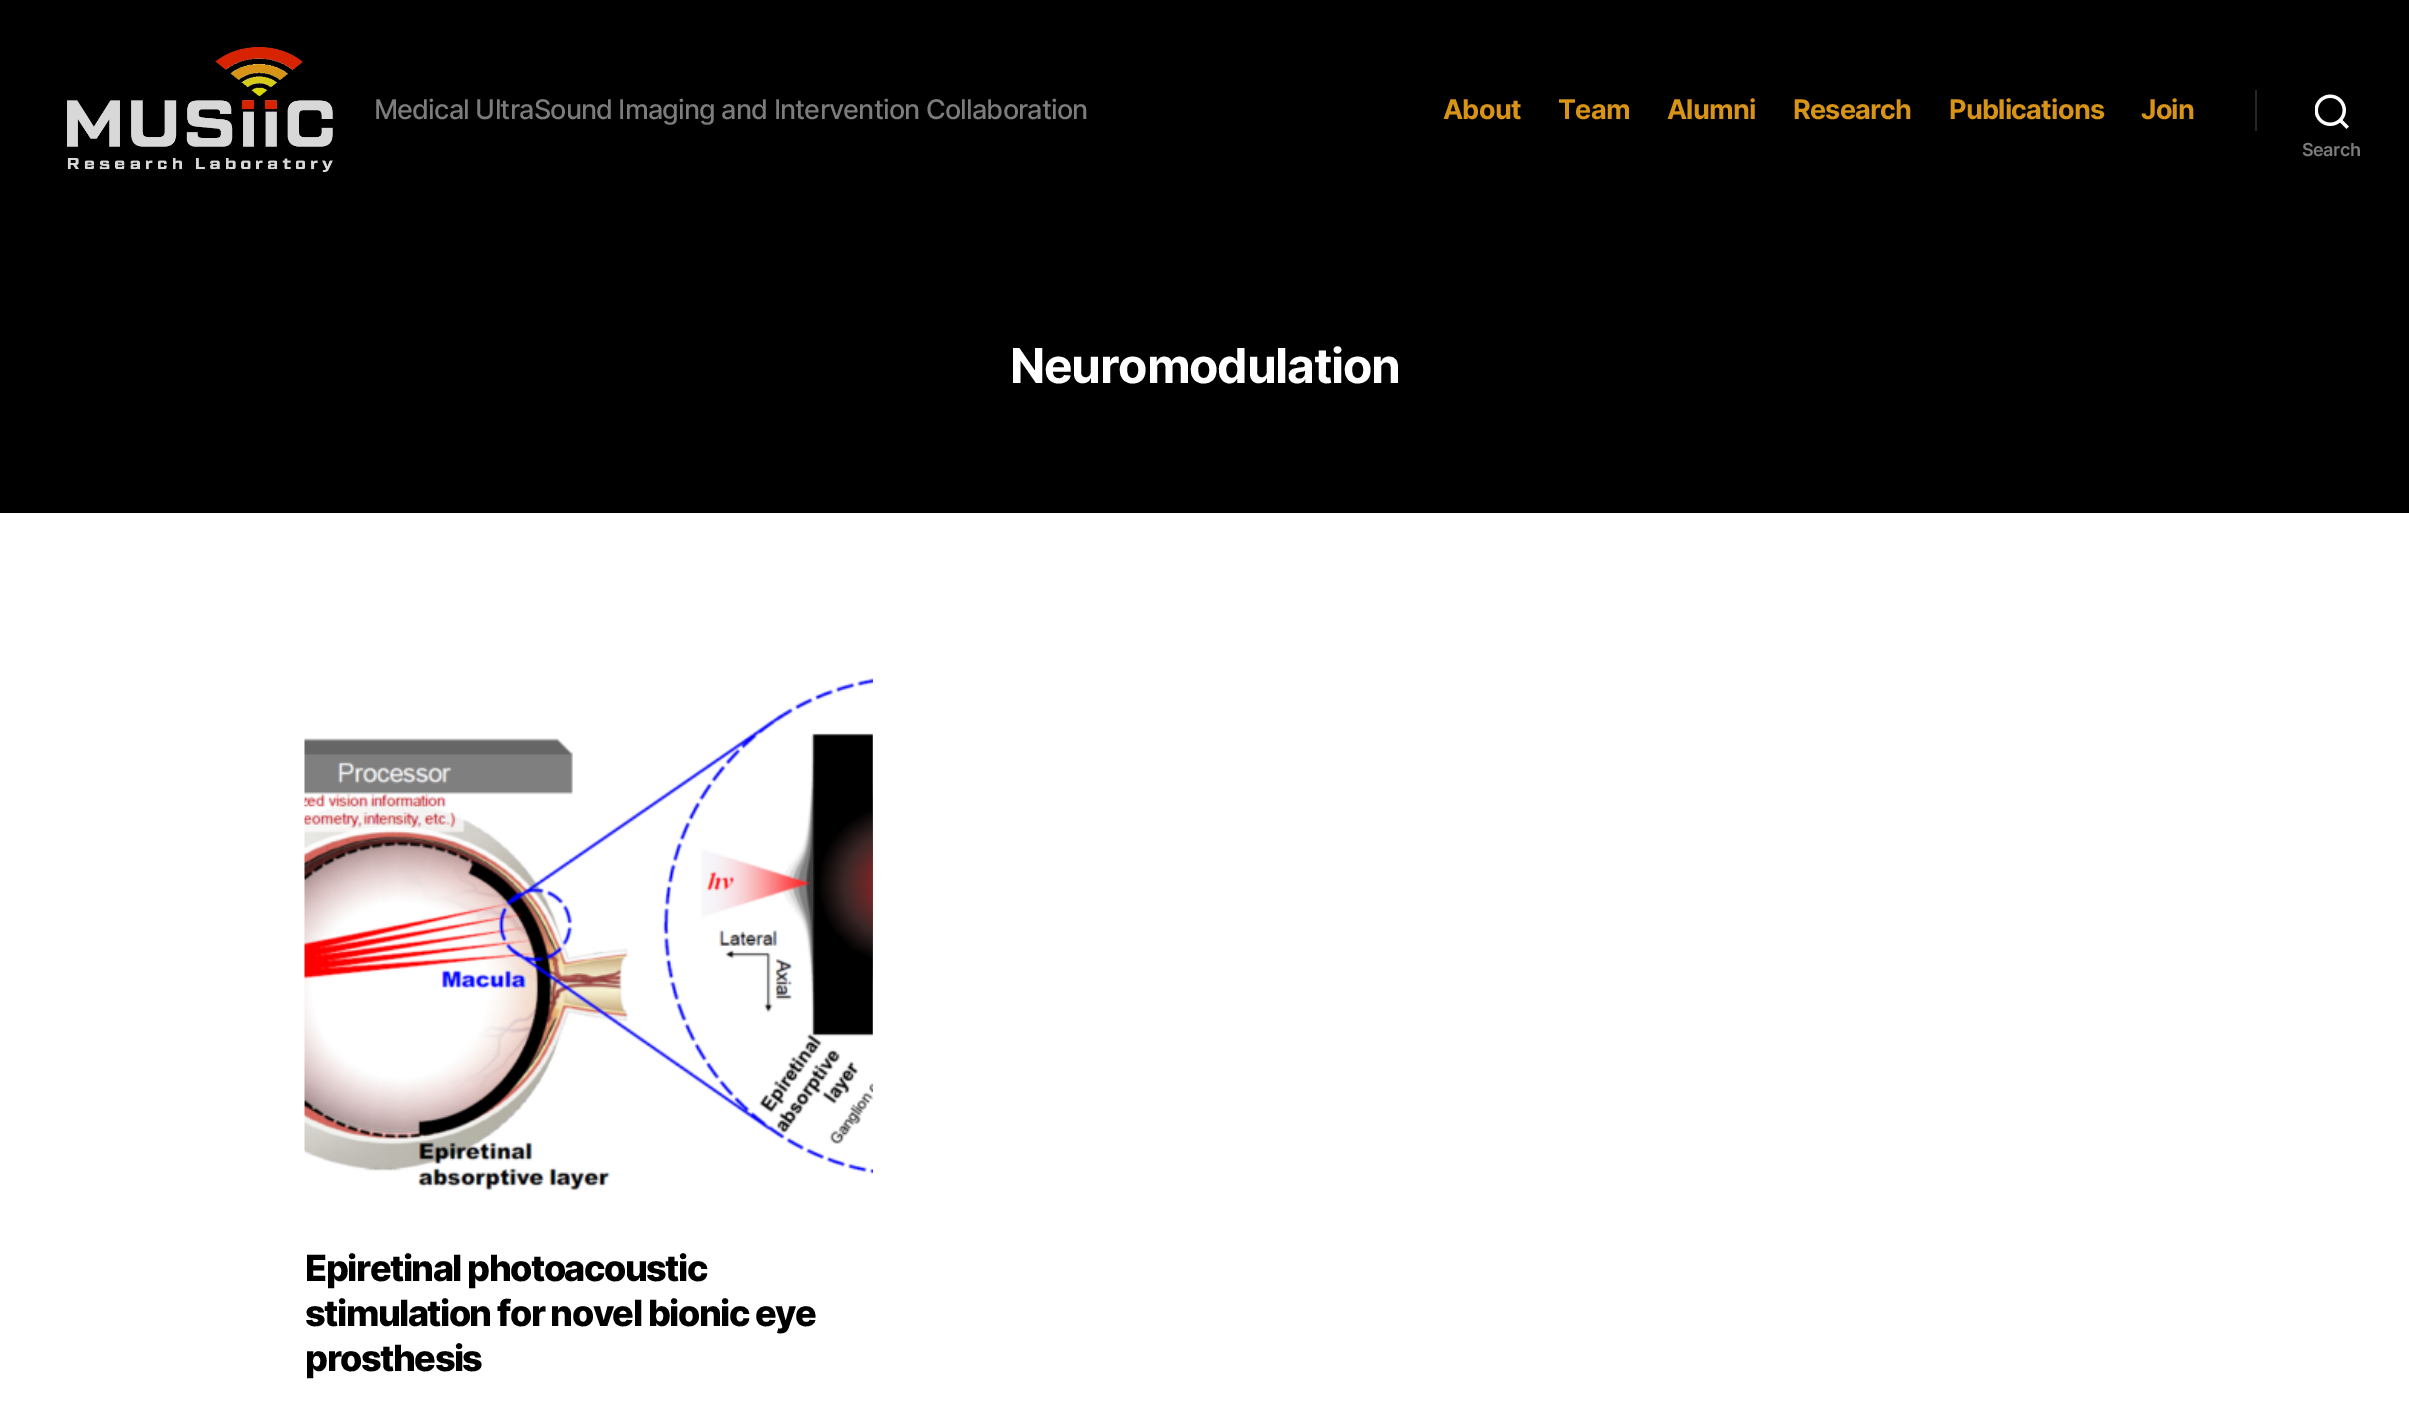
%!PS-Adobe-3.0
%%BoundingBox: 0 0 2409 1411
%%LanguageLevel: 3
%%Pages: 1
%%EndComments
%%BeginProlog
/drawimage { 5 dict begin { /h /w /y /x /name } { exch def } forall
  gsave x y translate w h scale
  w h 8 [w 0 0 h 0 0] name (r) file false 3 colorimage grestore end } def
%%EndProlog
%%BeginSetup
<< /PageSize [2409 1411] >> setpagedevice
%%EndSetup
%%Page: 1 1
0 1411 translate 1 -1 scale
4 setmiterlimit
1 setgray
0 0 2409 1411 rectfill
0 setgray
0 0 2409 513 rectfill
(images/1.raw) 67 46 266 126 drawimage
0.149 setgray
2255 90 2 41 rectfill
(images/2.raw) 2315 94 34 35 drawimage
(images/3.raw) 304 677 569 514 drawimage
/Inter-Medium [27 0 0 -27 0 0] selectfont
0.486 setgray
374 119 moveto -0.85 0 (Medical UltraSound Imaging and Intervention Collaboration) ashow
/Inter-Bold [27 0 0 -27 0 0] selectfont
0.843 0.58 0.086 setrgbcolor
1443 119 moveto -0.75 0 (About) ashow
1558 119 moveto -0.75 0 (Team) ashow
1667 119 moveto -0.75 0 (Alumni) ashow
1793 119 moveto -0.75 0 (Research) ashow
1949 119 moveto -0.75 0 (Publications) ashow
2141 119 moveto -0.75 0 (Join) ashow
/Inter-SemiBold [18 0 0 -18 0 0] selectfont
0.486 setgray
2302 156 moveto -0.5 0 (Search) ashow
/Inter-Bold [48 0 0 -48 0 0] selectfont
1 setgray
1010 383 moveto -1.25 0 (Neuromodulation) ashow
/Inter-ExtraBold [36 0 0 -36 0 0] selectfont
0 setgray
305 1281 moveto -1.5 0 (Epiretinal photoacoustic) ashow
305 1326 moveto -1.5 0 (stimulation for novel bionic eye) ashow
305 1371 moveto -1.5 0 (prosthesis) ashow
showpage
%%EOF
